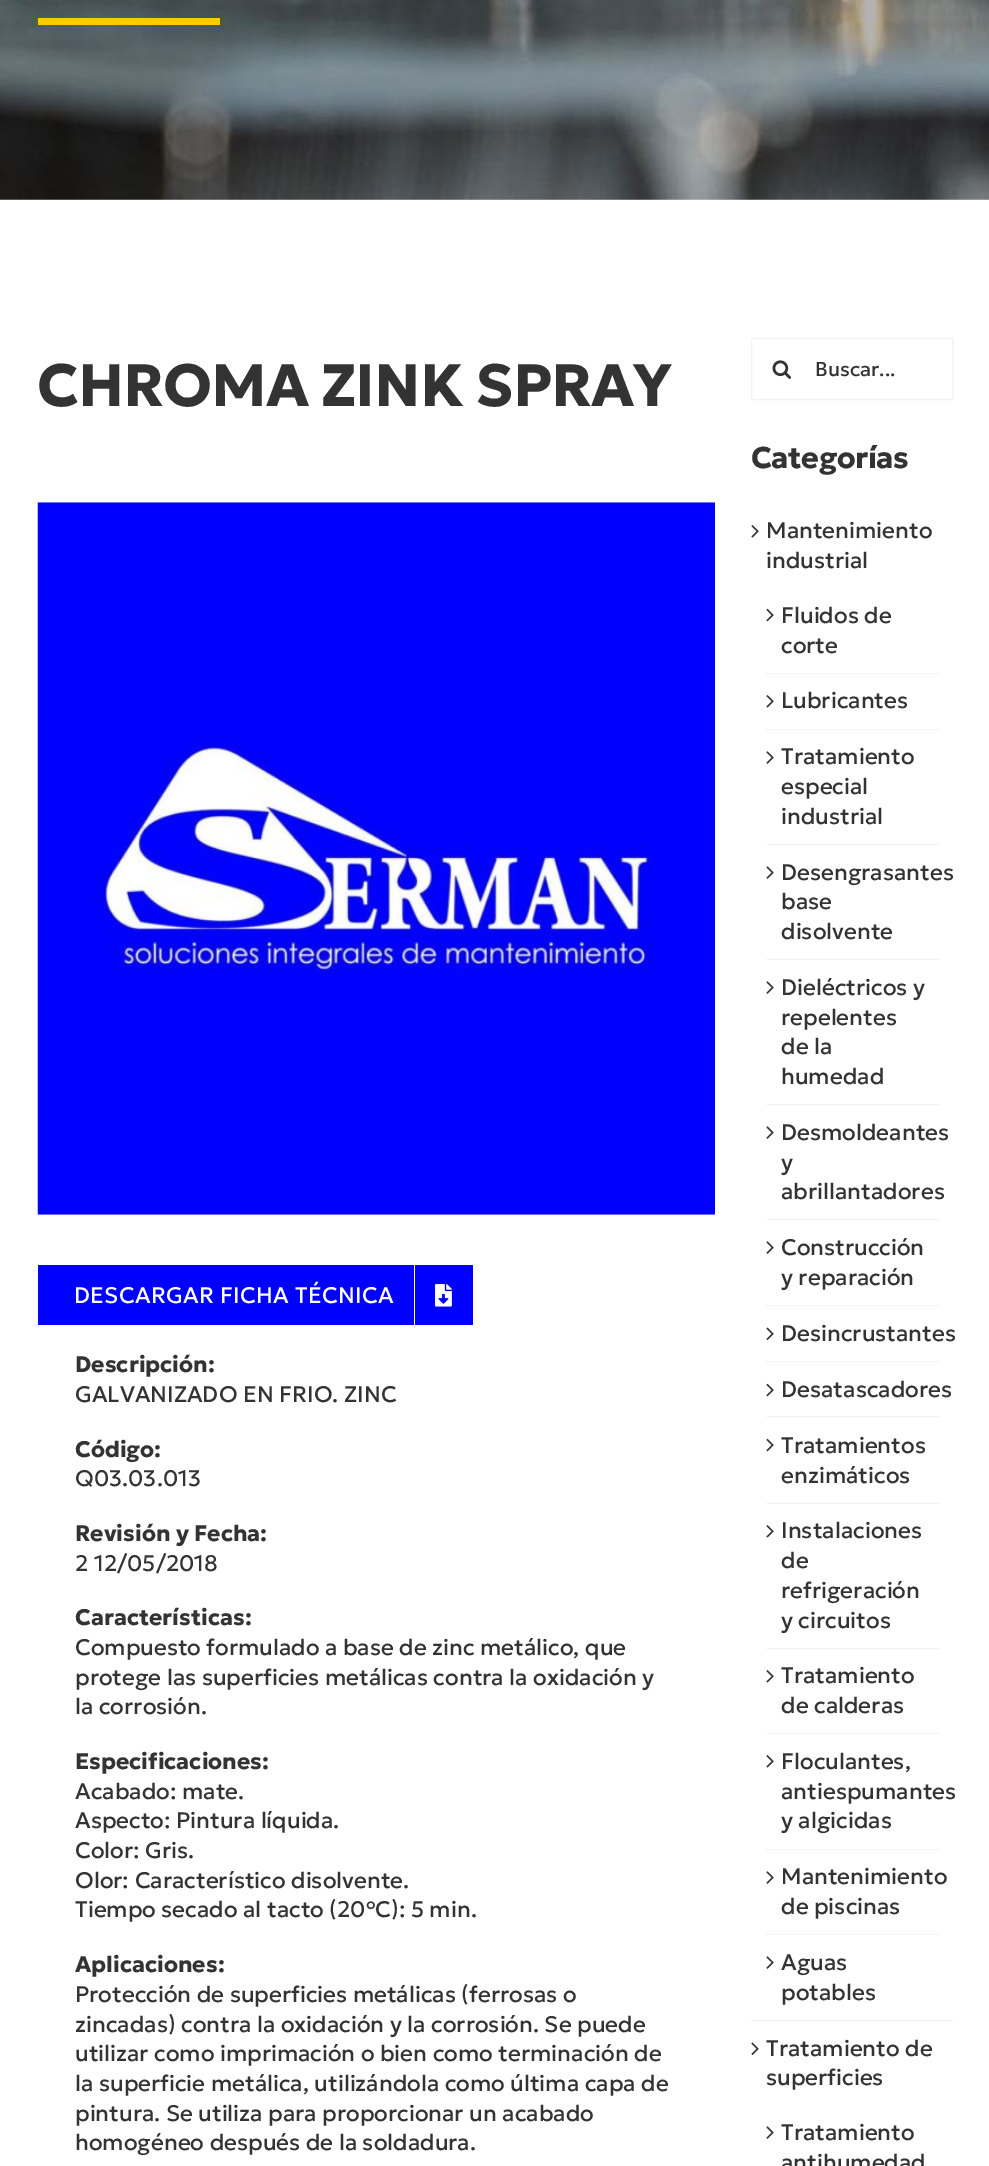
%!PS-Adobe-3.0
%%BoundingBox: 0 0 989 2166
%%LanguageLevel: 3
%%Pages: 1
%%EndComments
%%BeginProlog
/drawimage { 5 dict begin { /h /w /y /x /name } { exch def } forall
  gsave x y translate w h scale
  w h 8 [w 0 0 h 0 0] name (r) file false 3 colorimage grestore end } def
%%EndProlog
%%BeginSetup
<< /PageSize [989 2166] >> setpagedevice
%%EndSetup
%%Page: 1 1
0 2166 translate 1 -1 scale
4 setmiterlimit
1 setgray
0 0 989 2166 rectfill
(images/1.raw) 0 0 989 200 drawimage
1 0.796 0 setrgbcolor
38 18 182 7 rectfill
(images/2.raw) 37 502 678 713 drawimage
0 0 1 setrgbcolor
38 1265 435 60 rectfill
1 setgray
414 1265 1 60 rectfill
(images/3.raw) 435 1284 17 23 drawimage
0.949 0.953 0.961 setrgbcolor
751.5 338.5 201 61 rectstroke
(images/4.raw) 772 360 20 19 drawimage
751 2020 202 1 rectfill
(images/5.raw) 751 525 8 13 drawimage
766 673 174 1 rectfill
(images/6.raw) 766 608 8 14 drawimage
766 729 174 1 rectfill
(images/5.raw) 766 695 8 13 drawimage
766 844 174 1 rectfill
(images/7.raw) 766 751 8 13 drawimage
766 959 174 1 rectfill
(images/7.raw) 766 866 8 13 drawimage
766 1104 174 1 rectfill
(images/7.raw) 766 981 8 13 drawimage
766 1219 174 1 rectfill
(images/7.raw) 766 1126 8 13 drawimage
766 1305 174 1 rectfill
(images/7.raw) 766 1241 8 13 drawimage
766 1361 174 1 rectfill
(images/8.raw) 766 1327 8 13 drawimage
766 1416 174 1 rectfill
(images/6.raw) 766 1383 8 14 drawimage
766 1503 174 1 rectfill
(images/6.raw) 766 1438 8 14 drawimage
766 1648 174 1 rectfill
(images/5.raw) 766 1525 8 13 drawimage
766 1733 174 1 rectfill
(images/5.raw) 766 1670 8 13 drawimage
766 1849 174 1 rectfill
(images/5.raw) 766 1755 8 13 drawimage
766 1934 174 1 rectfill
(images/7.raw) 766 1871 8 13 drawimage
(images/7.raw) 766 1956 8 13 drawimage
(images/8.raw) 751 2042 8 13 drawimage
(images/7.raw) 766 2126 8 13 drawimage
/Geologica-Bold [59.6 0 0 -59.6 0 0] selectfont
0.2 setgray
37 406 moveto -0.9 0 (CHROMA ZINK SPRAY) ashow
/Geologica-Regular [22.5 0 0 -22.5 0 0] selectfont
1 setgray
74 1303 moveto 0.3 0 (DESCARGAR FICHA TÉCNICA) ashow
/Geologica-Bold [22.5 0 0 -22.5 0 0] selectfont
0.2 setgray
75 1372 moveto (Descripción:) show
/Geologica-Regular [22.5 0 0 -22.5 0 0] selectfont
75 1402 moveto (GALVANIZADO EN FRIO. ZINC) show
/Geologica-Bold [22.5 0 0 -22.5 0 0] selectfont
75 1457 moveto (Código:) show
/Geologica-Regular [22.5 0 0 -22.5 0 0] selectfont
75 1486 moveto (Q03.03.013) show
/Geologica-Bold [22.5 0 0 -22.5 0 0] selectfont
75 1541 moveto (Revisión y Fecha:) show
/Geologica-Regular [22.5 0 0 -22.5 0 0] selectfont
75 1571 moveto (2 12/05/2018) show
/Geologica-Bold [22.5 0 0 -22.5 0 0] selectfont
75 1625 moveto (Características:) show
/Geologica-Regular [22.5 0 0 -22.5 0 0] selectfont
75 1655 moveto (Compuesto formulado a base de zinc metálico, que) show
75 1685 moveto (protege las superficies metálicas contra la oxidación y) show
75 1714 moveto (la corrosión.) show
/Geologica-Bold [22.5 0 0 -22.5 0 0] selectfont
75 1769 moveto (Especificaciones:) show
/Geologica-Regular [22.5 0 0 -22.5 0 0] selectfont
75 1799 moveto (Acabado: mate.) show
75 1828 moveto (Aspecto: Pintura líquida.) show
75 1858 moveto (Color: Gris.) show
75 1888 moveto (Olor: Característico disolvente.) show
75 1917 moveto (Tiempo secado al tacto \(20ºC\): 5 min.) show
/Geologica-Bold [22.5 0 0 -22.5 0 0] selectfont
75 1972 moveto (Aplicaciones:) show
/Geologica-Regular [22.5 0 0 -22.5 0 0] selectfont
75 2002 moveto (Protección de superficies metálicas \(ferrosas o) show
75 2032 moveto (zincadas\) contra la oxidación y la corrosión. Se puede) show
75 2061 moveto (utilizar como imprimación o bien como terminación de) show
75 2091 moveto (la superficie metálica, utilizándola como última capa de) show
75 2121 moveto (pintura. Se utiliza para proporcionar un acabado) show
75 2150 moveto (homogéneo después de la soldadura.) show
/Geologica-Regular [20 0 0 -20 0 0] selectfont
815 376 moveto (Buscar...) show
/Geologica-Bold [30 0 0 -30 0 0] selectfont
751 468 moveto -0.5 0 (Categorías) ashow
/Geologica-Regular [22.5 0 0 -22.5 0 0] selectfont
766 538 moveto (Mantenimiento) show
766 568 moveto (industrial) show
781 623 moveto (Fluidos de) show
781 653 moveto (corte) show
781 708 moveto (Lubricantes) show
781 764 moveto (Tratamiento) show
781 794 moveto (especial) show
781 824 moveto (industrial) show
781 880 moveto (Desengrasantes) show
781 909 moveto (base) show
781 939 moveto (disolvente) show
781 995 moveto (Dieléctricos y) show
781 1025 moveto (repelentes) show
781 1054 moveto (de la) show
781 1084 moveto (humedad) show
781 1140 moveto (Desmoldeantes) show
781 1170 moveto (y) show
781 1199 moveto (abrillantadores) show
781 1255 moveto (Construcción) show
781 1285 moveto (y reparación) show
781 1341 moveto (Desincrustantes) show
781 1397 moveto (Desatascadores) show
781 1453 moveto (Tratamientos) show
781 1483 moveto (enzimáticos) show
781 1538 moveto (Instalaciones) show
781 1568 moveto (de) show
781 1598 moveto (refrigeración) show
781 1628 moveto (y circuitos) show
781 1683 moveto (Tratamiento) show
781 1713 moveto (de calderas) show
781 1769 moveto (Floculantes,) show
781 1799 moveto (antiespumantes) show
781 1828 moveto (y algicidas) show
781 1884 moveto (Mantenimiento) show
781 1914 moveto (de piscinas) show
781 1970 moveto (Aguas) show
781 2000 moveto (potables) show
766 2056 moveto (Tratamiento de) show
766 2085 moveto (superficies) show
781 2140 moveto (Tratamiento) show
781 2170 moveto (antihumedad) show
showpage
%%EOF
